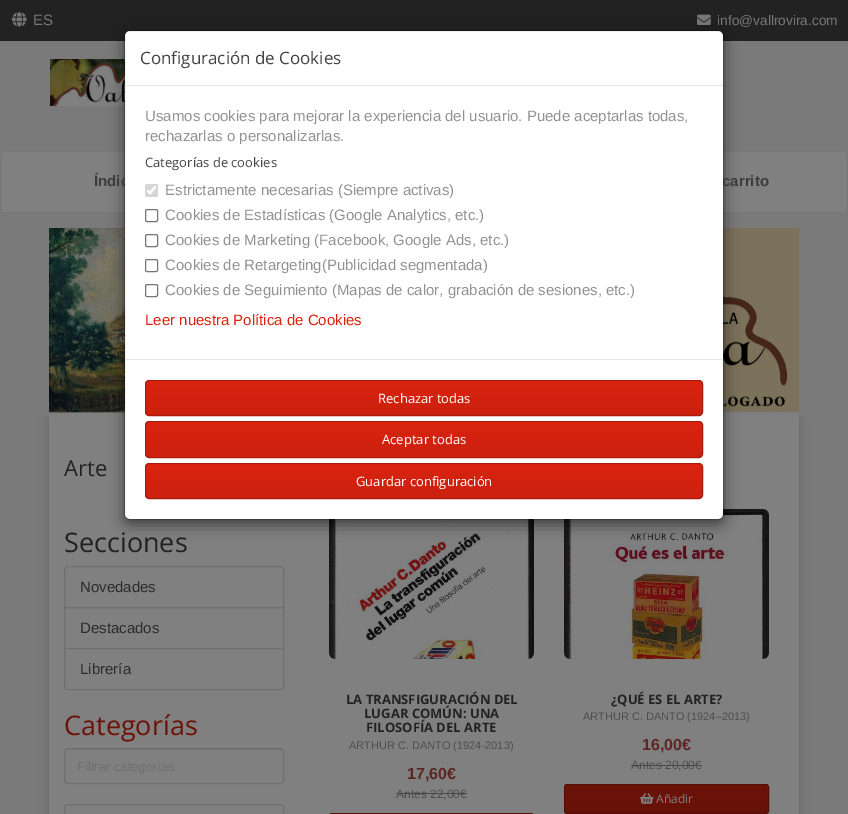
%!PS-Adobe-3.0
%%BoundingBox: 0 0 848 814
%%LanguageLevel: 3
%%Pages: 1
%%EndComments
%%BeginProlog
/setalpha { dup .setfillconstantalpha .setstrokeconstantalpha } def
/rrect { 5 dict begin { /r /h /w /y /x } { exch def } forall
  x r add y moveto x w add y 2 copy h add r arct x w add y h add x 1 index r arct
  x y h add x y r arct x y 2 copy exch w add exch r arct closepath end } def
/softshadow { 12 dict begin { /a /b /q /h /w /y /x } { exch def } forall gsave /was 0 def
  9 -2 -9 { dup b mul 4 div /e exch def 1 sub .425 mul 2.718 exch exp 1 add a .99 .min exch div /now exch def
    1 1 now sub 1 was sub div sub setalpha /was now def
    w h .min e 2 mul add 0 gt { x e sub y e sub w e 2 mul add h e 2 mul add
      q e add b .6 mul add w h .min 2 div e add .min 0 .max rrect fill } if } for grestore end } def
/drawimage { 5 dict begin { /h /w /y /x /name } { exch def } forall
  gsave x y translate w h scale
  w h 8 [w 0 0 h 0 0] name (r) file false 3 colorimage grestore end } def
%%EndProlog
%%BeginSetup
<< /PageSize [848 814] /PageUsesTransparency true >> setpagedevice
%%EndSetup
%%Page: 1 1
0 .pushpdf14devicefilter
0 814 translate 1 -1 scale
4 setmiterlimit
0.478 setgray
0 0 848 814 rectfill
0.133 setgray
0 0 848 41 rectfill
(images/1.raw) 12 12 15 15 drawimage
(images/2.raw) 697 14 14 11 drawimage
(images/3.raw) 50 59 75 47 drawimage
0.502 setgray
0.5 151.5 847 61 3.5 rrect gsave fill grestore
0.467 setgray
stroke
0.239 setgray
49 420 750 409 0 5 0.33 softshadow
(images/4.raw) 49 228 750 187 drawimage
0.502 setgray
49 415 750 399 rectfill
(images/5.raw) 329 519 205 140 drawimage
(images/6.raw) 564 509 205 150 drawimage
0 setgray
124 35 600 490 6 7.5 0.5 softshadow
0.435 setgray
newpath 68 566.5 moveto 280 566.5 lineto 282 566.5 283.5 568 283.5 570 curveto 283.5 607.5 lineto 64.5 607.5 lineto 64.5 570 lineto 64.5 568 66 566.5 68 566.5 curveto closepath stroke
64.5 607.5 219 41 rectstroke
0.502 setgray
newpath 64.5 648.5 moveto 283.5 648.5 lineto 283.5 686 lineto 283.5 688 282 689.5 280 689.5 curveto 68 689.5 lineto 66 689.5 64.5 688 64.5 686 curveto closepath gsave fill grestore
0.435 setgray
stroke
0.463 setgray
newpath 68 750 moveto 280 750 lineto 282 750 283 751 283 753 curveto 283 752 lineto 283 750 282 749 280 749 curveto 68 749 lineto 66 749 65 750 65 752 curveto 65 753 lineto 65 751 66 750 68 750 curveto closepath fill
0.435 setgray
64.5 748.5 219 35 3.5 rrect stroke
newpath 68 804.5 moveto 280 804.5 lineto 282 804.5 283.5 806 283.5 808 curveto 283.5 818.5 lineto 64.5 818.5 lineto 64.5 808 lineto 64.5 806 66 804.5 68 804.5 curveto closepath stroke
0.333 0.055 0.024 setrgbcolor
329.5 813.5 204 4 2.5 rrect stroke
gsave newpath 565 785 moveto 768 785 lineto 768 813 lineto 565 813 lineto closepath clip newpath
<< /ShadingType 2 /ColorSpace /DeviceRGB /Coords [667 785 667 813] /Extend [true true] /Function << /FunctionType 3 /Domain [0 1] /Functions [<< /FunctionType 2 /Domain [0 1] /C0 [0.455 0.075 0.031] /C1 [0.427 0.071 0.031] /N 1 >> << /FunctionType 2 /Domain [0 1] /C0 [0.427 0.071 0.031] /C1 [0.4 0.067 0.027] /N 1 >>] /Bounds [0.06] /Encode [0 1 0 1] >> >> shfill grestore
564.5 784.5 204 29 2.5 rrect stroke
(images/7.raw) 640 793 14 11 drawimage
/LiberationSans-Regular [15 0 0 -15 0 0] selectfont
0.467 setgray
33 25 moveto (ES) show
/LiberationSans-Regular [13.75 0 0 -13.75 0 0] selectfont
717 25 moveto (info@vallrovira.com) show
/LiberationSans-Bold [15 0 0 -15 0 0] selectfont
0.235 setgray
94 186 moveto (Índic) show
722 186 moveto (carrito) show
1 setgray
125 31 598 488 5 rrect fill
0.2 setalpha
0 setgray
124.5 30.5 599 489 5.5 rrect stroke
1 setalpha
0.463 setgray
145.5 284.5 12 12 1.5 rrect stroke
/LiberationSans-Regular [15 0 0 -15 0 0] selectfont
0.573 setgray
165 295 moveto (Cookies de Seguimiento \(Mapas de calor, grabación de sesiones, etc.\)) show
0.463 setgray
145.5 259.5 12 12 1.5 rrect stroke
0.573 setgray
165 270 moveto (Cookies de Retargeting\(Publicidad segmentada\)) show
0.463 setgray
145.5 234.5 12 12 1.5 rrect stroke
0.573 setgray
165 245 moveto (Cookies de Marketing \(Facebook, Google Ads, etc.\)) show
0.463 setgray
145.5 209.5 12 12 1.5 rrect stroke
0.573 setgray
165 220 moveto (Cookies de Estadísticas \(Google Analytics, etc.\)) show
0.839 setgray
145 184 13 13 2 rrect fill
1 setgray
2.1 setlinewidth
newpath 147.5 190.5 moveto 150 193 lineto 155.5 186.5 lineto stroke
0.573 setgray
165 195 moveto (Estrictamente necesarias \(Siempre activas\)) show
0.851 0.137 0.059 setrgbcolor
145 325 moveto (Leer nuestra Política de Cookies) show
/OpenSans-Regular [13 0 0 -13 0 0] selectfont
0.267 setgray
145 167 moveto (Categorías de cookies) show
/LiberationSans-Regular [15 0 0 -15 0 0] selectfont
0.573 setgray
145 141 moveto (rechazarlas o personalizarlas.) show
145 121 moveto (Usamos cookies para mejorar la experiencia del usuario. Puede aceptarlas todas,) show
gsave
145 463 558 36 4 rrect clip newpath
gsave newpath 146 464 moveto 702 464 lineto 702 498 lineto 146 498 lineto closepath clip newpath
<< /ShadingType 2 /ColorSpace /DeviceRGB /Coords [424 464 424 498] /Extend [true true] /Function << /FunctionType 3 /Domain [0 1] /Functions [<< /FunctionType 2 /Domain [0 1] /C0 [0.906 0.145 0.063] /C1 [0.851 0.137 0.059] /N 1 >> << /FunctionType 2 /Domain [0 1] /C0 [0.851 0.137 0.059] /C1 [0.796 0.129 0.055] /N 1 >>] /Bounds [0.06] /Encode [0 1 0 1] >> >> shfill grestore
grestore
0.663 0.106 0.047 setrgbcolor
1 setlinewidth
145.5 463.5 557 35 3.5 rrect stroke
/OpenSans-Regular [13 0 0 -13 0 0] selectfont
1 setgray
356 486 moveto (Guardar configuración) show
gsave
145 421 558 37 4 rrect clip newpath
gsave newpath 146 422 moveto 702 422 lineto 702 457 lineto 146 457 lineto closepath clip newpath
<< /ShadingType 2 /ColorSpace /DeviceRGB /Coords [424 422 424 457] /Extend [true true] /Function << /FunctionType 3 /Domain [0 1] /Functions [<< /FunctionType 2 /Domain [0 1] /C0 [0.906 0.145 0.063] /C1 [0.851 0.137 0.059] /N 1 >> << /FunctionType 2 /Domain [0 1] /C0 [0.851 0.137 0.059] /C1 [0.796 0.129 0.055] /N 1 >>] /Bounds [0.06] /Encode [0 1 0 1] >> >> shfill grestore
grestore
0.663 0.106 0.047 setrgbcolor
145.5 421.5 557 36 3.5 rrect stroke
1 setgray
382 444 moveto (Aceptar todas) show
gsave
145 380 558 36 4 rrect clip newpath
gsave newpath 146 381 moveto 702 381 lineto 702 415 lineto 146 415 lineto closepath clip newpath
<< /ShadingType 2 /ColorSpace /DeviceRGB /Coords [424 381 424 415] /Extend [true true] /Function << /FunctionType 3 /Domain [0 1] /Functions [<< /FunctionType 2 /Domain [0 1] /C0 [0.906 0.145 0.063] /C1 [0.851 0.137 0.059] /N 1 >> << /FunctionType 2 /Domain [0 1] /C0 [0.851 0.137 0.059] /C1 [0.796 0.129 0.055] /N 1 >>] /Bounds [0.06] /Encode [0 1 0 1] >> >> shfill grestore
grestore
0.663 0.106 0.047 setrgbcolor
145.5 380.5 557 35 3.5 rrect stroke
1 setgray
378 403 moveto (Rechazar todas) show
/OpenSans-Regular [17 0 0 -17 0 0] selectfont
0.267 setgray
140 64 moveto (Configuración de Cookies) show
0.898 setgray
125 359 598 1 rectfill
125 85 598 1 rectfill
/OpenSans-Regular [22 0 0 -22 0 0] selectfont
0.133 setgray
64 476 moveto (Arte) show
/OpenSans-Regular [27 0 0 -27 0 0] selectfont
64 552 moveto (Secciones) show
/LiberationSans-Regular [15 0 0 -15 0 0] selectfont
0.169 setgray
80 592 moveto (Novedades) show
80 633 moveto (Destacados) show
80 674 moveto (Librería) show
/OpenSans-Regular [27 0 0 -27 0 0] selectfont
0.427 0.071 0.031 setrgbcolor
64 735 moveto (Categorías) show
/LiberationSans-Regular [13 0 0 -13 0 0] selectfont
0.435 setgray
77 771 moveto (Filtrar categorías) show
/OpenSans-Bold [13 0 0 -13 0 0] selectfont
0.133 setgray
346 704 moveto (LA TRANSFIGURACIÓN DEL) show
364 718 moveto (LUGAR COMÚN: UNA) show
366 732 moveto (FILOSOFÍA DEL ARTE) show
/LiberationSans-Regular [11 0 0 -11 0 0] selectfont
0.302 setgray
349 749 moveto (ARTHUR C. DANTO \(1924-2013\)) show
/LiberationSans-Bold [16 0 0 -16 0 0] selectfont
0.365 0.145 0.141 setrgbcolor
407 779 moveto (17,60€) show
/LiberationSans-Regular [12 0 0 -12 0 0] selectfont
0.302 setgray
396 798 moveto (Antes 22,00€) show
0.286 setgray
396 793 71 1 rectfill
/OpenSans-Bold [13 0 0 -13 0 0] selectfont
0.133 setgray
611 704 moveto (¿QUÉ ES EL ARTE?) show
/LiberationSans-Regular [11 0 0 -11 0 0] selectfont
0.302 setgray
583 720 moveto (ARTHUR C. DANTO \(1924–2013\)) show
/LiberationSans-Bold [16 0 0 -16 0 0] selectfont
0.365 0.145 0.141 setrgbcolor
642 750 moveto (16,00€) show
/LiberationSans-Regular [12 0 0 -12 0 0] selectfont
0.302 setgray
631 769 moveto (Antes 20,00€) show
0.286 setgray
631 765 71 1 rectfill
/OpenSans-Regular [12 0 0 -12 0 0] selectfont
0.502 setgray
656 803 moveto (Añadir) show
.poppdf14devicefilter showpage
%%EOF
